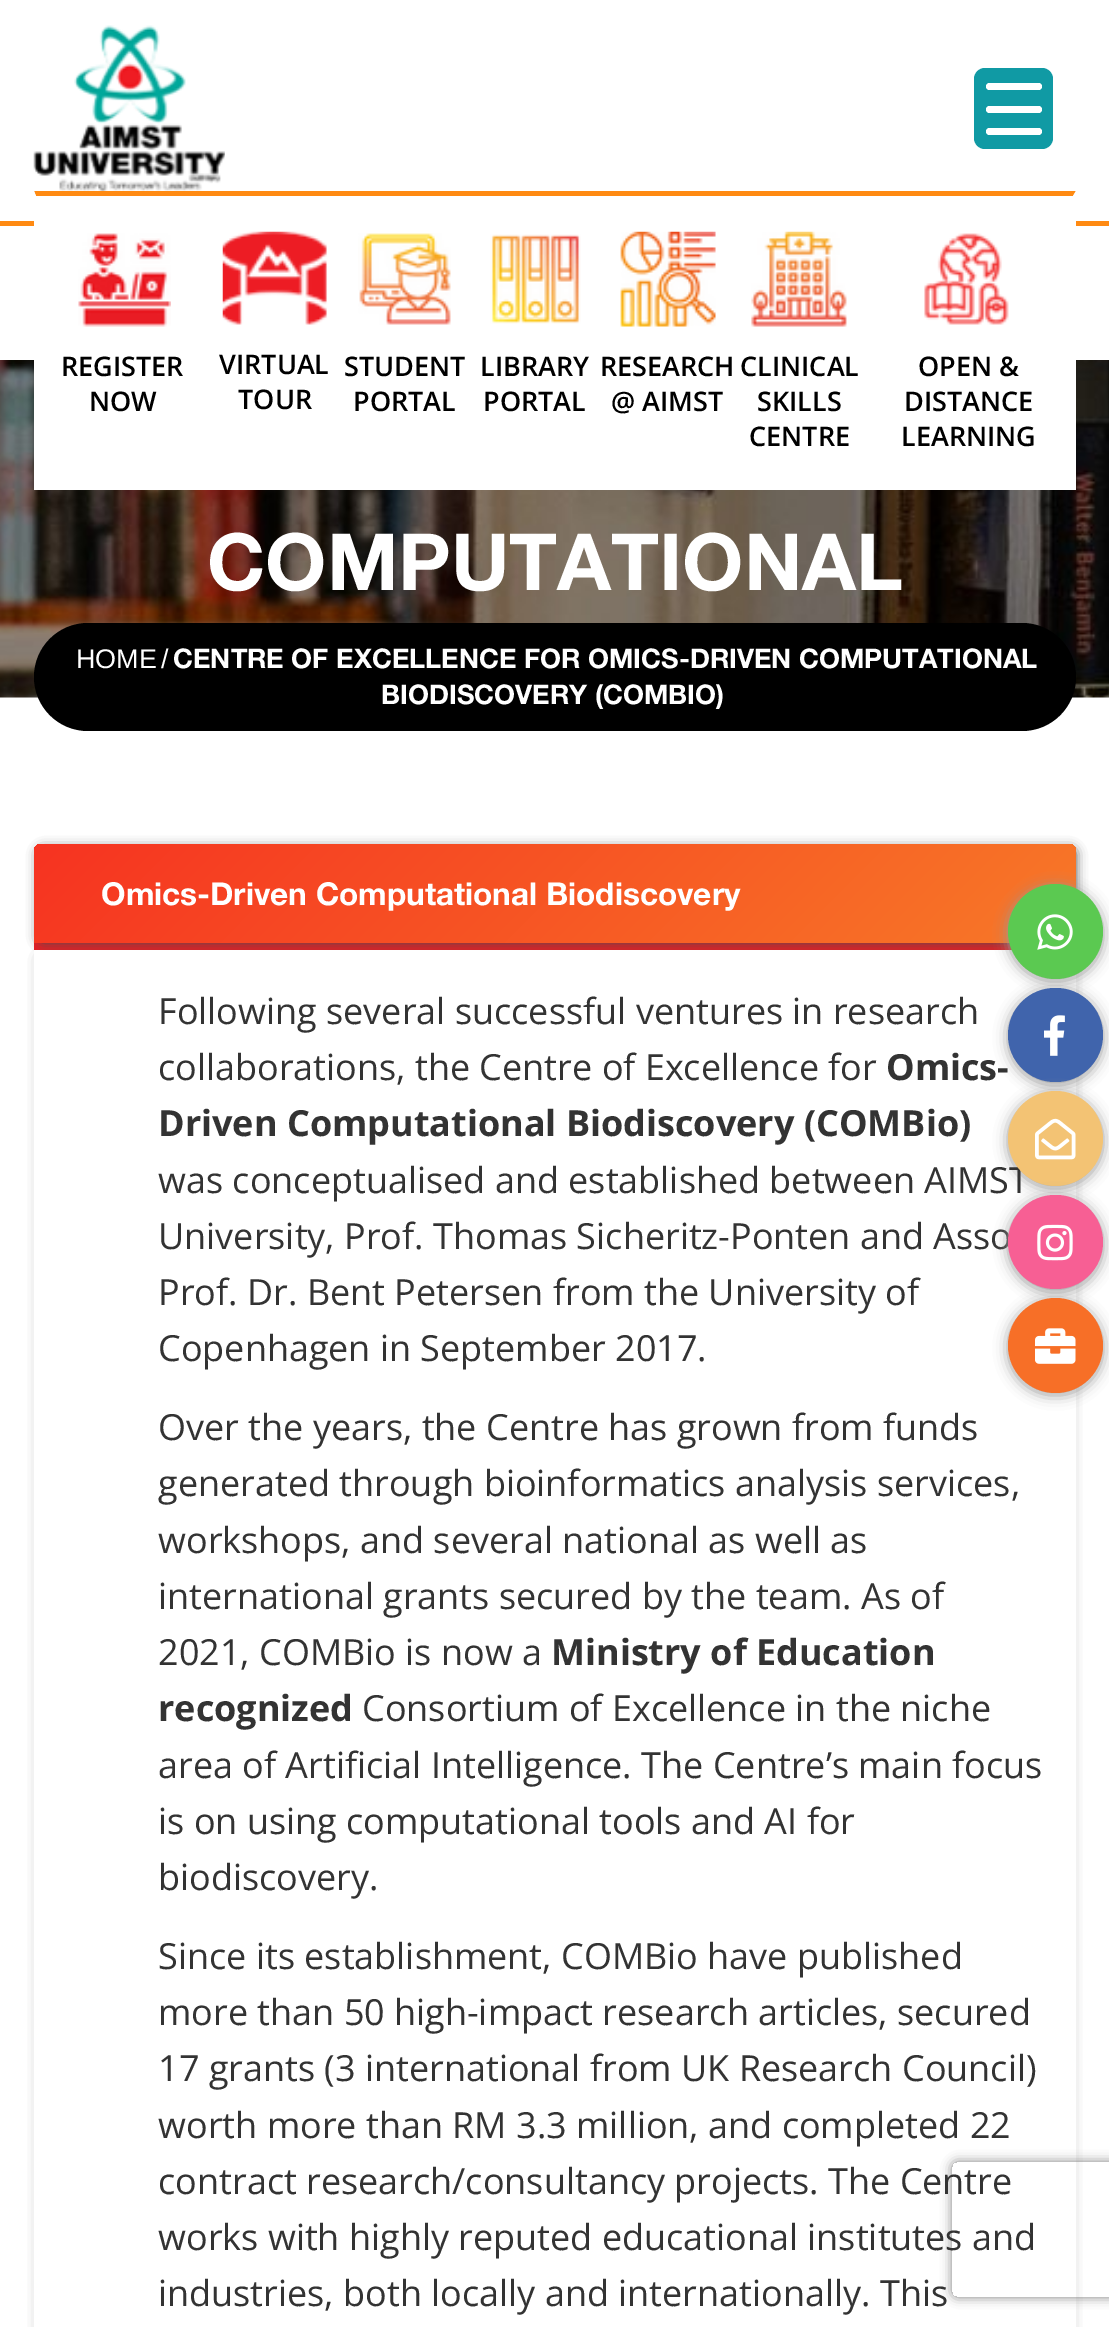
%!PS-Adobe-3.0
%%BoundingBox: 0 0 1109 2327
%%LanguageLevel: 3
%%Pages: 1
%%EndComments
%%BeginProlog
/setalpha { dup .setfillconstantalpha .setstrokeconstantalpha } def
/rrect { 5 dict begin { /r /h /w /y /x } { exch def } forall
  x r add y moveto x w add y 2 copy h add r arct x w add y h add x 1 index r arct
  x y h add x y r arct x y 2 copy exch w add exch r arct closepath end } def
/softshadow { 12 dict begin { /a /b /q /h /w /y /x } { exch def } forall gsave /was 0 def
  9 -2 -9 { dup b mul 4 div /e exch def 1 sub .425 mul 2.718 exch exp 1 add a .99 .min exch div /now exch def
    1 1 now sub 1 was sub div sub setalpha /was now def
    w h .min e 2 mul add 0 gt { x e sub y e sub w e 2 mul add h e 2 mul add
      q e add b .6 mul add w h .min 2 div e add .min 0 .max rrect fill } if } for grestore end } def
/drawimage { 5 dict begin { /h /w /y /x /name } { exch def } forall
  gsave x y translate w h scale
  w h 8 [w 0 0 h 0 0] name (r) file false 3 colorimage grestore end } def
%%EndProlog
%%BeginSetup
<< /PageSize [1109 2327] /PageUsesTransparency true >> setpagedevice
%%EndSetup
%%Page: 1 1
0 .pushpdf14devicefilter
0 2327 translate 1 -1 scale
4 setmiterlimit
1 setgray
0 0 1109 2327 rectfill
0.063 0.604 0.643 setrgbcolor
974 68 79 81 11 rrect fill
1 setgray
986 106 56 7 3.5 rrect fill
986 83 56 7 3.5 rrect fill
986 128 56 7 3.5 rrect fill
1 0.541 0.071 setrgbcolor
0 221 1109 5 rectfill
(images/1.raw) 33 25 192 166 drawimage
(images/9.raw) 0 360 1109 338 drawimage
1 setgray
36 221 1037 267 rectfill
1 0.541 0.071 setrgbcolor
newpath 34 191 moveto 1076 191 lineto 1073 196 lineto 36 196 lineto closepath fill
1 setgray
newpath 1076 191 moveto 1076 490 lineto 1073 488 lineto 1073 196 lineto closepath fill
34 488 1042 2 rectfill
newpath 34 490 moveto 34 191 lineto 36 196 lineto 36 488 lineto closepath fill
(images/2.raw) 78 233 93 94 drawimage
(images/3.raw) 222 231 105 94 drawimage
(images/4.raw) 358 233 93 92 drawimage
(images/5.raw) 490 234 91 90 drawimage
(images/6.raw) 620 231 96 96 drawimage
(images/7.raw) 751 231 96 96 drawimage
(images/8.raw) 924 233 85 92 drawimage
0 setgray
34 623 1042 108 54 rrect fill
0.925 0.11 0.137 setrgbcolor
34 943 978 7 rectfill
0.306 setgray
38 848 1038 95 5 5.5 1 softshadow
gsave newpath 41 844 moveto 1069 844 lineto 1073 844 1076 847 1076 851 curveto 1076 943 lineto 34 943 lineto 34 851 lineto 34 847 37 844 41 844 curveto closepath clip newpath
<< /ShadingType 2 /ColorSpace /DeviceRGB /Coords [269 608 840 1178] /Extend [true true] /Function << /FunctionType 2 /Domain [0 1] /C0 [0.965 0.2 0.129] /C1 [0.969 0.475 0.157] /N 1 >> >> shfill grestore
43 959 1024 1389 0 7 1 softshadow
1 setgray
34 950 1042 1377 rectfill
0.6 setgray
1008 887 95 94 47 7 1 softshadow
0.357 0.788 0.318 setrgbcolor
newpath 1055.5 931.5 47.5 0 360 arc closepath fill
(images/10.raw) 1037 914 36 36 drawimage
0.6 setgray
1008 990 95 95 47.5 7 1 softshadow
0.251 0.392 0.675 setrgbcolor
1008 988 95 94 47 rrect fill
(images/11.raw) 1044 1015 21 41 drawimage
0.6 setgray
1008 1094 95 94 47 7 1 softshadow
gsave
newpath 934 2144 moveto 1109 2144 lineto 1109 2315 lineto 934 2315 lineto closepath 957 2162 moveto 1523 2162 lineto 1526 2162 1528 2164 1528 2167 curveto 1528 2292 lineto 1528 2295 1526 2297 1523 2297 curveto 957 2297 lineto 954 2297 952 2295 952 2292 curveto 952 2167 lineto 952 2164 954 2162 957 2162 curveto closepath eoclip newpath
0.502 setgray
952 2162 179 135 5 5.5 1 softshadow
grestore
/OpenSans-SemiBold [27 0 0 -27 0 0] selectfont
0 setgray
61 376 moveto (REGISTER) show
89 411 moveto (NOW) show
219 374 moveto (VIRTUAL) show
238 409 moveto (TOUR) show
344 376 moveto (STUDENT) show
353 411 moveto (PORTAL) show
480 376 moveto (LIBRARY) show
483 411 moveto (PORTAL) show
600 376 moveto (RESEARCH) show
611 411 moveto (@ AIMST) show
740 376 moveto (CLINICAL) show
757 411 moveto (SKILLS) show
749 446 moveto (CENTRE) show
918 376 moveto (OPEN &) show
904 411 moveto (DISTANCE) show
901 446 moveto (LEARNING) show
/HelveticaNeue-Bold [78.75 0 0 -78.75 0 0] selectfont
1 setgray
207 590 moveto (COMPUTATIONAL) show
/LiberationSans-Regular [27 0 0 -27 0 0] selectfont
76 668 moveto (HOME) show
161 668 moveto (/) show
/HelveticaNeue-Bold [27 0 0 -27 0 0] selectfont
173 668 moveto (CENTRE OF EXCELLENCE FOR OMICS-DRIVEN COMPUTATIONAL) show
381 704 moveto (BIODISCOVERY \(COMBIO\)) show
/HelveticaNeue-Bold [31.5 0 0 -31.5 0 0] selectfont
101 905 moveto (Omics-Driven Computational Biodiscovery) show
/OpenSans-Regular [36 0 0 -36 0 0] selectfont
0.2 setgray
158 1024 moveto (Following several successful ventures in research) show
158 1080 moveto (collaborations, the Centre of Excellence for) show
/OpenSans-Bold [36 0 0 -36 0 0] selectfont
886 1080 moveto (Omics-) show
158 1136 moveto (Driven Computational Biodiscovery \(COMBio\)) show
/OpenSans-Regular [36 0 0 -36 0 0] selectfont
158 1193 moveto (was conceptualised and established between AIMST) show
158 1249 moveto (University, Prof. Thomas Sicheritz-Ponten and Asso) show
158 1305 moveto (Prof. Dr. Bent Petersen from the University of) show
158 1361 moveto (Copenhagen in September 2017.) show
158 1440 moveto (Over the years, the Centre has grown from funds) show
158 1496 moveto (generated through bioinformatics analysis services,) show
158 1553 moveto (workshops, and several national as well as) show
158 1609 moveto (international grants secured by the team. As of) show
158 1665 moveto (2021, COMBio is now a) show
/OpenSans-Bold [36 0 0 -36 0 0] selectfont
551 1665 moveto (Ministry of Education) show
158 1721 moveto (recognized) show
/OpenSans-Regular [36 0 0 -36 0 0] selectfont
362 1721 moveto (Consortium of Excellence in the niche) show
158 1778 moveto (area of Artificial Intelligence. The Centre’s main focus) show
158 1834 moveto (is on using computational tools and AI for) show
158 1890 moveto (biodiscovery.) show
158 1969 moveto (Since its establishment, COMBio have published) show
158 2025 moveto (more than 50 high-impact research articles, secured) show
158 2081 moveto (17 grants \(3 international from UK Research Council\)) show
158 2138 moveto (worth more than RM 3.3 million, and completed 22) show
158 2194 moveto (contract research/consultancy projects. The Centre) show
158 2250 moveto (works with highly reputed educational institutes and) show
158 2306 moveto (industries, both locally and internationally. This) show
0.953 0.765 0.455 setrgbcolor
newpath 1055.5 1138.5 47.5 0 360 arc closepath fill
(images/12.raw) 1035 1118 41 42 drawimage
0.6 setgray
1008 1197 95 95 47.5 7 1 softshadow
0.969 0.373 0.58 setrgbcolor
1008 1195 95 94 47 rrect fill
(images/13.raw) 1037 1224 36 37 drawimage
0.6 setgray
1008 1301 95 94 47 7 1 softshadow
0.969 0.435 0.153 setrgbcolor
newpath 1055.5 1345.5 47.5 0 360 arc closepath fill
(images/14.raw) 1035 1328 41 36 drawimage
.poppdf14devicefilter showpage
%%EOF
